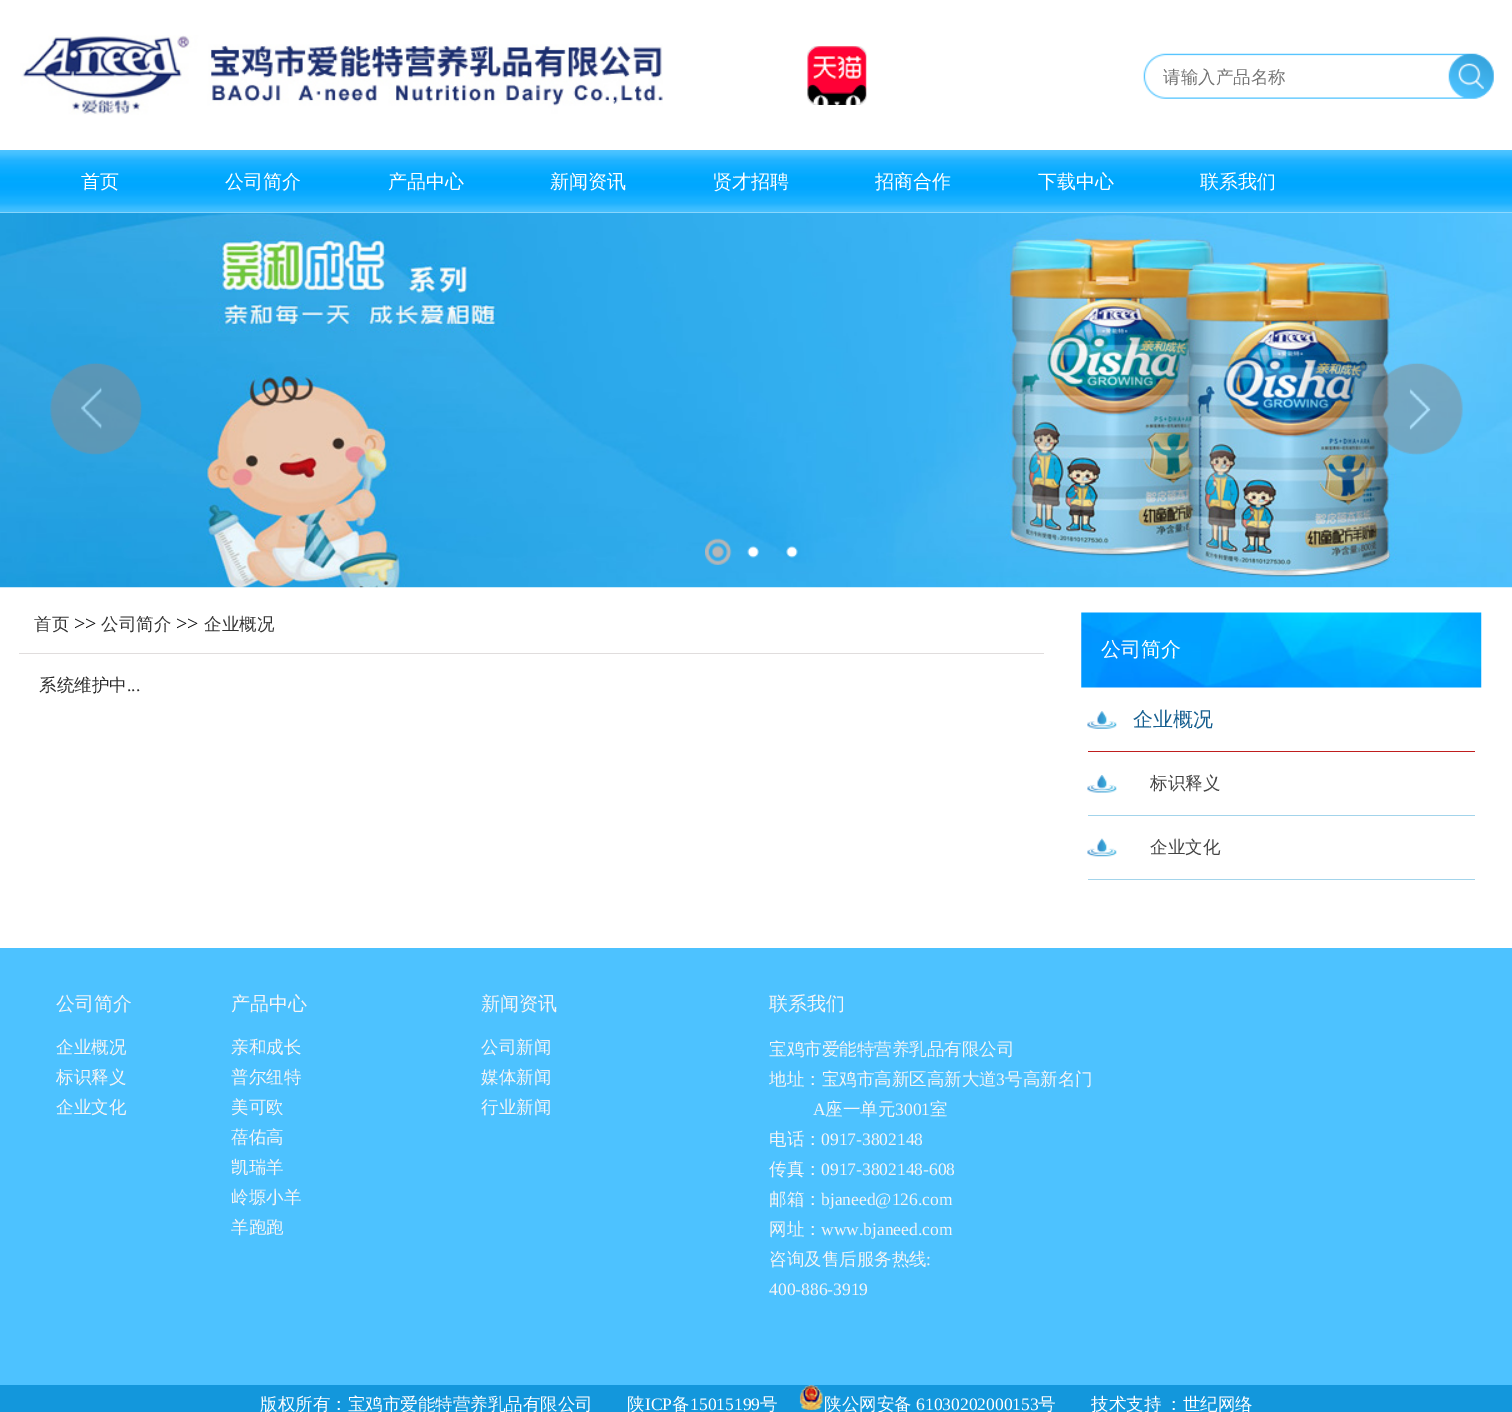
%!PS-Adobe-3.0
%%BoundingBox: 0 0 1512 1412
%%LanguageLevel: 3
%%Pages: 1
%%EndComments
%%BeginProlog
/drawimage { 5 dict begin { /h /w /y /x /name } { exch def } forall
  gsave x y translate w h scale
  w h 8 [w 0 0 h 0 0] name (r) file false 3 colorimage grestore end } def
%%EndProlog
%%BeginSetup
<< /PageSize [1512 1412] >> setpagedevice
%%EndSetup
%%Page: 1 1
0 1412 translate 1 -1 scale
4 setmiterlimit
1 setgray
0 0 1512 1412 rectfill
(images/1.raw) 20 35 643 80 drawimage
(images/2.raw) 807 46 60 59 drawimage
(images/3.raw) 1143 53 351 46 drawimage
(images/5.raw) 0 212 1512 376 drawimage
(images/4.raw) 0 150 1512 63 drawimage
(images/6.raw) 50 362 92 93 drawimage
(images/7.raw) 1371 363 92 92 drawimage
(images/8.raw) 705 538 27 27 drawimage
(images/9.raw) 747 546 12 12 drawimage
(images/10.raw) 786 546 12 12 drawimage
0.878 0.867 0.867 setrgbcolor
19 653 1025 1 rectfill
(images/11.raw) 1081 612 401 76 drawimage
(images/12.raw) 1087 711 30 18 drawimage
0.753 0.118 0.118 setrgbcolor
1088 751 387 1 rectfill
(images/13.raw) 1087 775 30 18 drawimage
0.639 0.831 0.922 setrgbcolor
1088 815 387 1 rectfill
(images/14.raw) 1087 838 30 19 drawimage
1088 879 387 1 rectfill
0.302 0.761 1 setrgbcolor
0 948 1512 437 rectfill
0.075 0.592 0.863 setrgbcolor
0 1385 1512 27 rectfill
(images/15.raw) 799 1385 24 25 drawimage
/WenQuanYiZenHei-Medium [17.5 0 0 -17.5 0 0] selectfont
0.459 setgray
1163 83 moveto (请输入产品名称) show
/WenQuanYiZenHei-Medium [19 0 0 -19 0 0] selectfont
1 setgray
81 188 moveto (首页) show
225 188 moveto (公司简介) show
388 188 moveto (产品中心) show
550 188 moveto (新闻资讯) show
713 188 moveto (贤才招聘) show
875 188 moveto (招商合作) show
1038 188 moveto (下载中心) show
1200 188 moveto (联系我们) show
/WenQuanYiZenHei-Medium [17.5 0 0 -17.5 0 0] selectfont
0.2 setgray
34 630 moveto (首页) show
/LiberationSerif-Regular [20 0 0 -20 0 0] selectfont
0.004 0.008 0.016 setrgbcolor
74 630 moveto (>>) show
/WenQuanYiZenHei-Medium [17.5 0 0 -17.5 0 0] selectfont
0.2 setgray
101 630 moveto (公司简介) show
/LiberationSerif-Regular [20 0 0 -20 0 0] selectfont
0.004 0.008 0.016 setrgbcolor
176 630 moveto (>>) show
/WenQuanYiZenHei-Medium [17.5 0 0 -17.5 0 0] selectfont
0.2 setgray
204 630 moveto (企业概况) show
0.169 setgray
39 691 moveto (系统维护中) show
/LiberationSerif-Regular [17.5 0 0 -17.5 0 0] selectfont
127 691 moveto (...) show
/WenQuanYiZenHei-Medium [20 0 0 -20 0 0] selectfont
1 setgray
1101 656 moveto (公司简介) show
0.086 0.373 0.565 setrgbcolor
1133 726 moveto (企业概况) show
/WenQuanYiZenHei-Medium [17.5 0 0 -17.5 0 0] selectfont
0.267 setgray
1150 789 moveto (标识释义) show
1150 853 moveto (企业文化) show
/WenQuanYiZenHei-Medium [19 0 0 -19 0 0] selectfont
0.961 0.961 0.969 setrgbcolor
56 1010 moveto (公司简介) show
/WenQuanYiZenHei-Medium [17.5 0 0 -17.5 0 0] selectfont
56 1053 moveto (企业概况) show
56 1083 moveto (标识释义) show
56 1113 moveto (企业文化) show
/WenQuanYiZenHei-Medium [19 0 0 -19 0 0] selectfont
231 1010 moveto (产品中心) show
/WenQuanYiZenHei-Medium [17.5 0 0 -17.5 0 0] selectfont
231 1053 moveto (亲和成长) show
231 1083 moveto (普尔纽特) show
231 1113 moveto (美可欧) show
231 1143 moveto (蓓佑高) show
231 1173 moveto (凯瑞羊) show
231 1203 moveto (岭塬小羊) show
231 1233 moveto (羊跑跑) show
/WenQuanYiZenHei-Medium [19 0 0 -19 0 0] selectfont
481 1010 moveto (新闻资讯) show
/WenQuanYiZenHei-Medium [17.5 0 0 -17.5 0 0] selectfont
481 1053 moveto (公司新闻) show
481 1083 moveto (媒体新闻) show
481 1113 moveto (行业新闻) show
/WenQuanYiZenHei-Medium [19 0 0 -19 0 0] selectfont
769 1010 moveto (联系我们) show
/WenQuanYiZenHei-Medium [17.5 0 0 -17.5 0 0] selectfont
769 1055 moveto (宝鸡市爱能特营养乳品有限公司) show
769 1085 moveto (地址：宝鸡市高新区高新大道) show
/LiberationSerif-Regular [17.5 0 0 -17.5 0 0] selectfont
996 1085 moveto (3) show
/WenQuanYiZenHei-Medium [17.5 0 0 -17.5 0 0] selectfont
1005 1085 moveto (号高新名门) show
/LiberationSerif-Regular [17.5 0 0 -17.5 0 0] selectfont
813 1115 moveto (A) show
/WenQuanYiZenHei-Medium [17.5 0 0 -17.5 0 0] selectfont
825 1115 moveto (座一单元) show
/LiberationSerif-Regular [17.5 0 0 -17.5 0 0] selectfont
895 1115 moveto (3001) show
/WenQuanYiZenHei-Medium [17.5 0 0 -17.5 0 0] selectfont
930 1115 moveto (室) show
769 1145 moveto (电话：) show
/LiberationSerif-Regular [17.5 0 0 -17.5 0 0] selectfont
821 1145 moveto (0917-3802148) show
/WenQuanYiZenHei-Medium [17.5 0 0 -17.5 0 0] selectfont
769 1175 moveto (传真：) show
/LiberationSerif-Regular [17.5 0 0 -17.5 0 0] selectfont
821 1175 moveto (0917-3802148-608) show
/WenQuanYiZenHei-Medium [17.5 0 0 -17.5 0 0] selectfont
769 1205 moveto (邮箱：) show
/LiberationSerif-Regular [17.5 0 0 -17.5 0 0] selectfont
821 1205 moveto (bjaneed@126.com) show
/WenQuanYiZenHei-Medium [17.5 0 0 -17.5 0 0] selectfont
769 1235 moveto (网址：) show
/LiberationSerif-Regular [17.5 0 0 -17.5 0 0] selectfont
821 1235 moveto (www.bjaneed.com) show
/WenQuanYiZenHei-Medium [17.5 0 0 -17.5 0 0] selectfont
769 1265 moveto (咨询及售后服务热线) show
/LiberationSerif-Regular [17.5 0 0 -17.5 0 0] selectfont
926 1265 moveto (:) show
769 1295 moveto (400-886-3919) show
/WenQuanYiZenHei-Medium [17.5 0 0 -17.5 0 0] selectfont
1 setgray
260 1410 moveto (版权所有：宝鸡市爱能特营养乳品有限公司) show
627 1410 moveto (陕) show
/LiberationSerif-Regular [17.5 0 0 -17.5 0 0] selectfont
645 1410 moveto (ICP) show
/WenQuanYiZenHei-Medium [17.5 0 0 -17.5 0 0] selectfont
672 1410 moveto (备) show
/LiberationSerif-Regular [17.5 0 0 -17.5 0 0] selectfont
690 1410 moveto (15015199) show
/WenQuanYiZenHei-Medium [17.5 0 0 -17.5 0 0] selectfont
760 1410 moveto (号) show
824 1410 moveto (陕公网安备) show
/LiberationSerif-Regular [17.5 0 0 -17.5 0 0] selectfont
916 1410 moveto (61030202000153) show
/WenQuanYiZenHei-Medium [17.5 0 0 -17.5 0 0] selectfont
1038 1410 moveto (号) show
1091 1410 moveto (技术支持) show
1165 1410 moveto (：世纪网络) show
showpage
%%EOF
